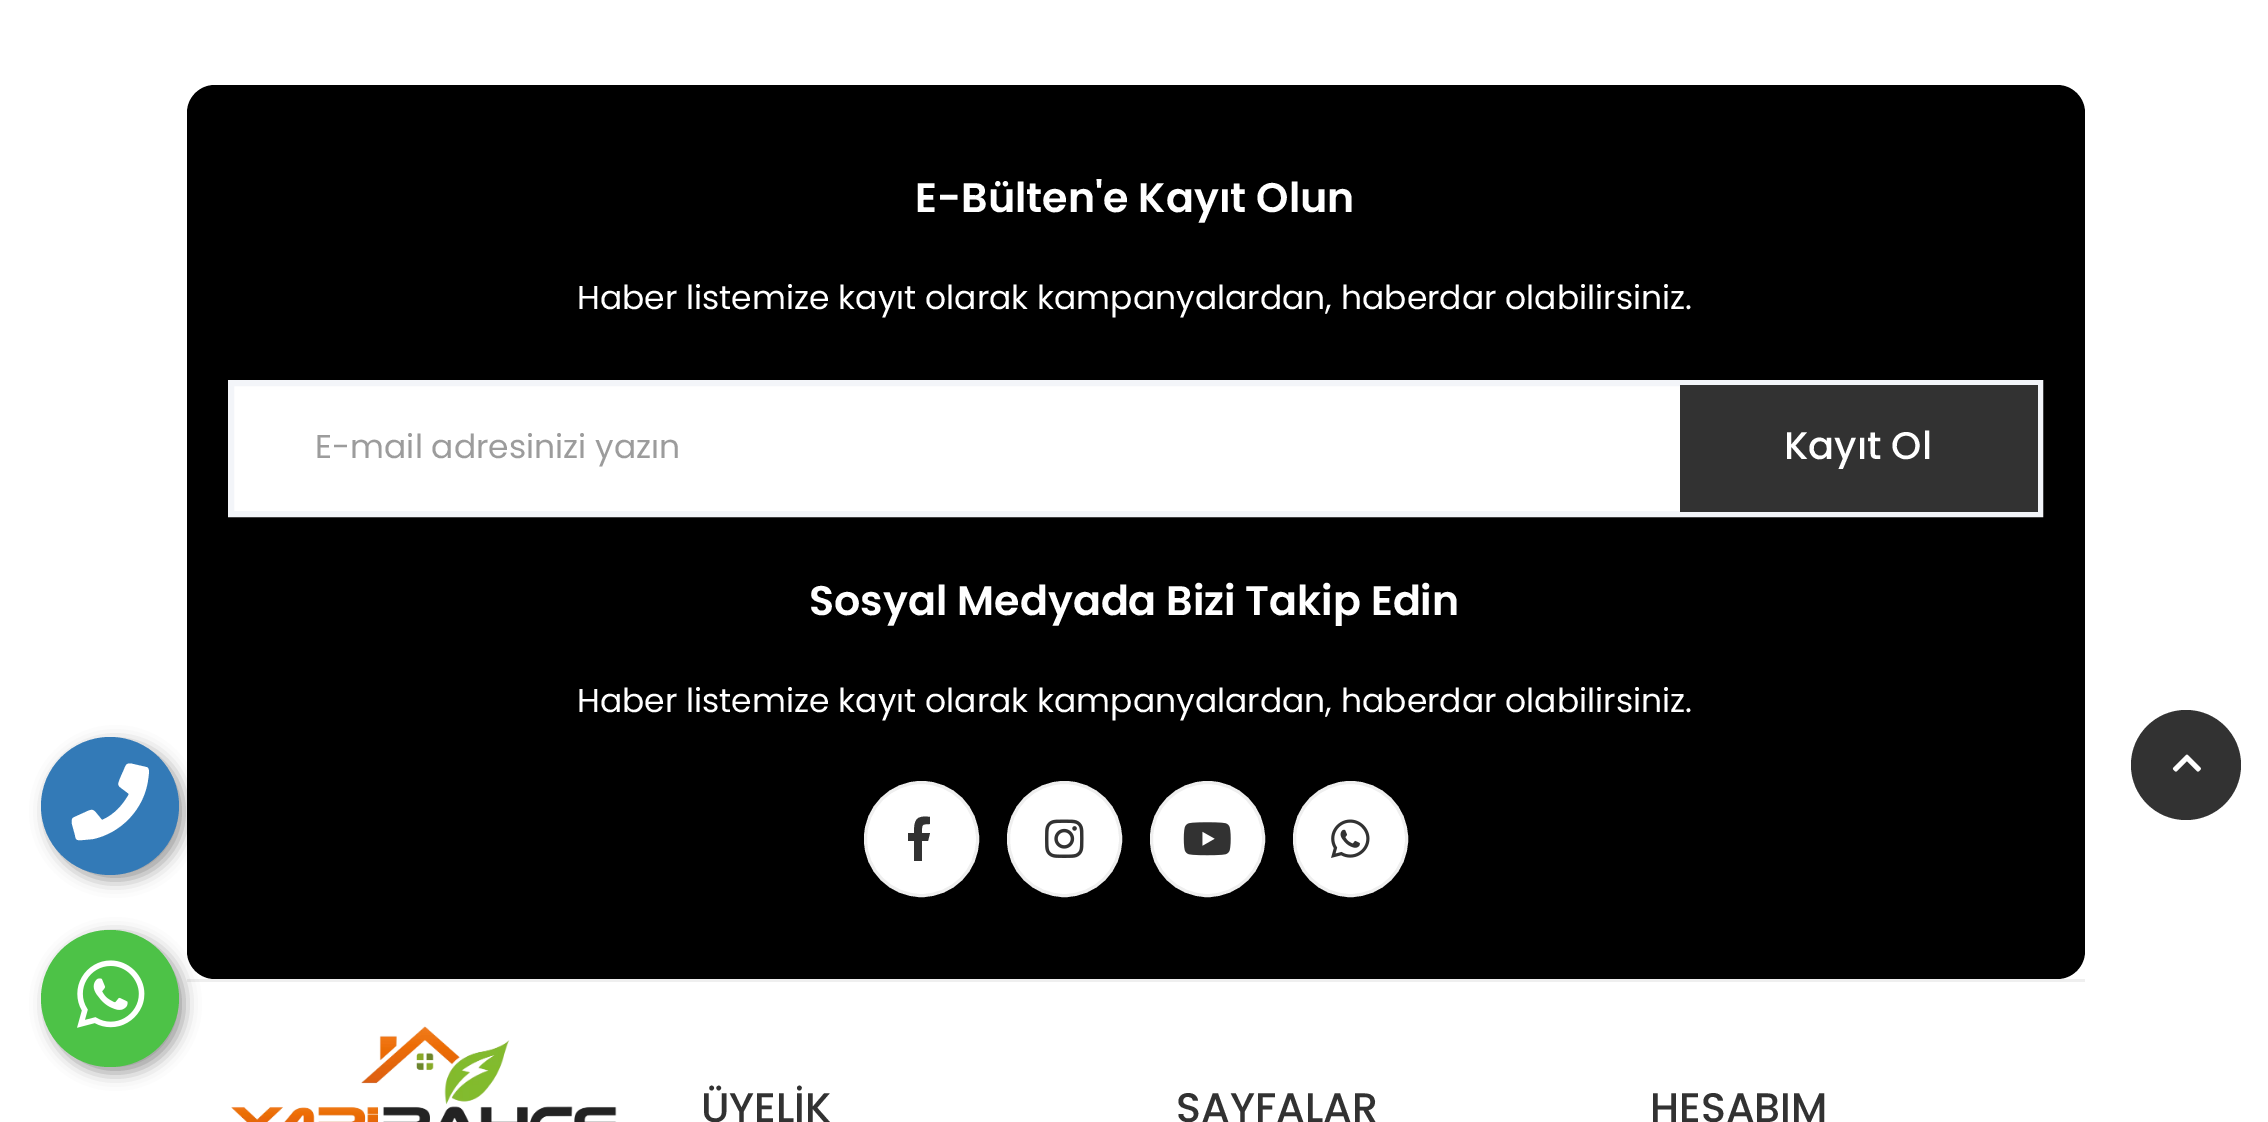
%!PS-Adobe-3.0
%%BoundingBox: 0 0 2268 1122
%%LanguageLevel: 3
%%Pages: 1
%%EndComments
%%BeginProlog
/setalpha { dup .setfillconstantalpha .setstrokeconstantalpha } def
/rrect { 5 dict begin { /r /h /w /y /x } { exch def } forall
  x r add y moveto x w add y 2 copy h add r arct x w add y h add x 1 index r arct
  x y h add x y r arct x y 2 copy exch w add exch r arct closepath end } def
/softshadow { 12 dict begin { /a /b /q /h /w /y /x } { exch def } forall gsave /was 0 def
  9 -2 -9 { dup b mul 4 div /e exch def 1 sub .425 mul 2.718 exch exp 1 add a .99 .min exch div /now exch def
    1 1 now sub 1 was sub div sub setalpha /was now def
    w h .min e 2 mul add 0 gt { x e sub y e sub w e 2 mul add h e 2 mul add
      q e add b .6 mul add w h .min 2 div e add .min 0 .max rrect fill } if } for grestore end } def
/drawimage { 5 dict begin { /h /w /y /x /name } { exch def } forall
  gsave x y translate w h scale
  w h 8 [w 0 0 h 0 0] name (r) file false 3 colorimage grestore end } def
%%EndProlog
%%BeginSetup
<< /PageSize [2268 1122] /PageUsesTransparency true >> setpagedevice
%%EndSetup
%%Page: 1 1
0 .pushpdf14devicefilter
0 1122 translate 1 -1 scale
4 setmiterlimit
1 setgray
0 0 2268 1122 rectfill
0 setgray
187 85 1898 894 28 rrect fill
47 743 137 137 68.5 8 0.4 softshadow
0.2 0.478 0.718 setrgbcolor
newpath 110 806 69 0 360 arc closepath fill
1 setgray
newpath 146 767 moveto 133 764 lineto 125 762 126 766 122 774 curveto 116 788 117 784 129 794 curveto 123 805 114 815 102 820 curveto 91 807 95 808 79 815 curveto 73 818 71 817 72 824 curveto 75 835 lineto 76 841 77 840 83 840 curveto 93 839 lineto 121 833 144 809 148 780 curveto 148 778 151 767 146 767 curveto closepath fill
234 386 1446 125 rectfill
0.953 0.961 0.976 setrgbcolor
6 setlinewidth
231 383 1809 131 rectstroke
0.196 setgray
1680 385 358 127 rectfill
1 setgray
865.5 782.5 112 113 56 rrect gsave fill grestore
0.937 setgray
3 setlinewidth
stroke
0.196 setgray
newpath 914 861 moveto 914 841 lineto 908 841 lineto 908 833 lineto 914 833 lineto 914 820 916 815 930 817 curveto 930 824 lineto 921 824 922 825 922 833 curveto 930 833 lineto 928 841 lineto 922 841 lineto 922 861 lineto closepath fill
1 setgray
1008.5 782.5 112 113 56 rrect gsave fill grestore
0.937 setgray
stroke
(images/1.raw) 1045 819 39 39 drawimage
1 setgray
1151.5 782.5 112 113 56 rrect gsave fill grestore
0.937 setgray
stroke
(images/2.raw) 1183 822 48 34 drawimage
1 setgray
1294.5 782.5 112 113 56 rrect gsave fill grestore
0.937 setgray
stroke
(images/3.raw) 1331 819 39 39 drawimage
187 979 1898 3 rectfill
(images/4.raw) 231 1026 386 96 drawimage
0.196 setgray
newpath 2186 765 55 0 360 arc closepath fill
(images/5.raw) 2172 754 29 18 drawimage
0 setgray
47 935 137 138 68.5 8 0.4 softshadow
0.302 0.761 0.278 setrgbcolor
41 930 138 137 68.5 rrect fill
(images/6.raw) 77 960 68 68 drawimage
/Poppins-SemiBold [41.25 0 0 -41.25 0 0] selectfont
1 setgray
915 212 moveto (E-Bülten'e Kayıt Olun) show
/Poppins-Regular [33 0 0 -33 0 0] selectfont
577 309 moveto (Haber listemize kayıt olarak kampanyalardan, haberdar olabilirsiniz.) show
0.612 setgray
315 458 moveto (E-mail adresinizi yazın) show
/Poppins-Medium [38.5 0 0 -38.5 0 0] selectfont
1 setgray
1784 459 moveto (Kayıt Ol) show
/Poppins-SemiBold [41.25 0 0 -41.25 0 0] selectfont
809 615 moveto (Sosyal Medyada Bizi Takip Edin) show
/Poppins-Regular [33 0 0 -33 0 0] selectfont
577 712 moveto (Haber listemize kayıt olarak kampanyalardan, haberdar olabilirsiniz.) show
/Poppins-Medium [41.25 0 0 -41.25 0 0] selectfont
0.196 setgray
701 1122 moveto (ÜYELİK) show
1176 1122 moveto (SAYFALAR) show
1650 1122 moveto (HESABIM) show
.poppdf14devicefilter showpage
%%EOF
